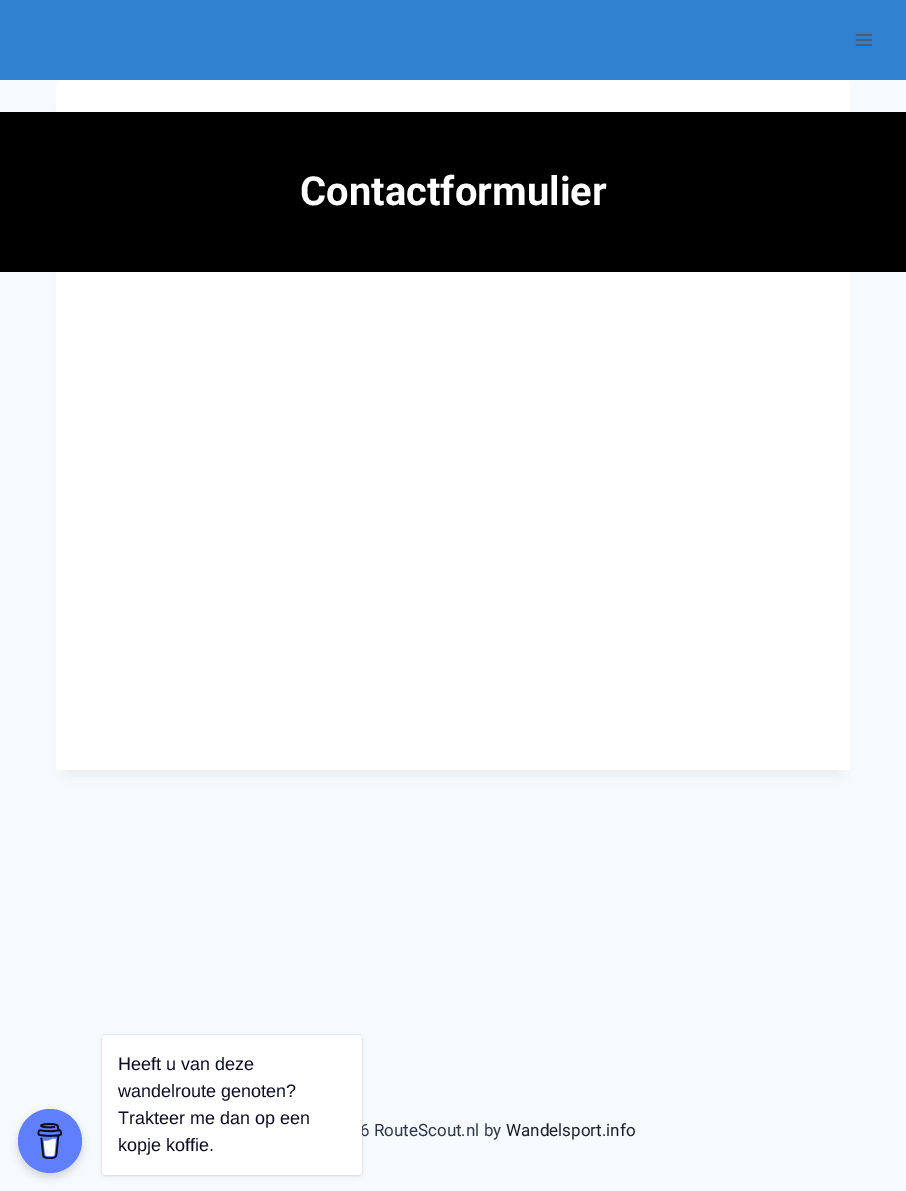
%!PS-Adobe-3.0
%%BoundingBox: 0 0 906 1191
%%LanguageLevel: 3
%%Pages: 1
%%EndComments
%%BeginProlog
/setalpha { dup .setfillconstantalpha .setstrokeconstantalpha } def
/rrect { 5 dict begin { /r /h /w /y /x } { exch def } forall
  x r add y moveto x w add y 2 copy h add r arct x w add y h add x 1 index r arct
  x y h add x y r arct x y 2 copy exch w add exch r arct closepath end } def
/softshadow { 12 dict begin { /a /b /q /h /w /y /x } { exch def } forall gsave /was 0 def
  9 -2 -9 { dup b mul 4 div /e exch def 1 sub .425 mul 2.718 exch exp 1 add a .99 .min exch div /now exch def
    1 1 now sub 1 was sub div sub setalpha /was now def
    w h .min e 2 mul add 0 gt { x e sub y e sub w e 2 mul add h e 2 mul add
      q e add b .6 mul add w h .min 2 div e add .min 0 .max rrect fill } if } for grestore end } def
/drawimage { 5 dict begin { /h /w /y /x /name } { exch def } forall
  gsave x y translate w h scale
  w h 8 [w 0 0 h 0 0] name (r) file false 3 colorimage grestore end } def
%%EndProlog
%%BeginSetup
<< /PageSize [906 1191] /PageUsesTransparency true >> setpagedevice
%%EndSetup
%%Page: 1 1
0 .pushpdf14devicefilter
0 1191 translate 1 -1 scale
4 setmiterlimit
0.969 0.98 0.988 setrgbcolor
0 0 906 1191 rectfill
0 setgray
18 1113 64 64 32 4 0.15 softshadow
0.373 0.498 1 setrgbcolor
newpath 50 1141 32 0 360 arc closepath fill
(images/1.raw) 37 1123 26 36 drawimage
0 setgray
102 1035 260 140 4 1 0.15 softshadow
102 1037 260 140 4 2.5 0.05 softshadow
0.192 0.51 0.808 setrgbcolor
0 0 906 80 rectfill
(images/2.raw) 855 34 18 12 drawimage
0 setgray
66 105 774 670 0 7.5 0.05 softshadow
1 setgray
56 80 794 690 4 rrect fill
0 setgray
0 112 906 160 rectfill
/Roboto-Bold [40 0 0 -40 0 0] selectfont
1 setgray
300 205 moveto (Contactformulier) show
/Roboto-Regular [17 0 0 -17 0 0] selectfont
0.176 0.216 0.282 setrgbcolor
360 1136 moveto (6 RouteScout.nl by) show
1 setgray
102 1035 260 140 4 rrect fill
/LiberationSans-Regular [18 0 0 -18 0 0] selectfont
0.051 0.047 0.133 setrgbcolor
118 1151 moveto (kopje koffie.) show
118 1124 moveto (Trakteer me dan op een) show
118 1097 moveto (wandelroute genoten?) show
118 1070 moveto (Heeft u van deze) show
/Roboto-Regular [17 0 0 -17 0 0] selectfont
0.102 0.125 0.173 setrgbcolor
506 1136 moveto (Wandelsport.info) show
.poppdf14devicefilter showpage
%%EOF
